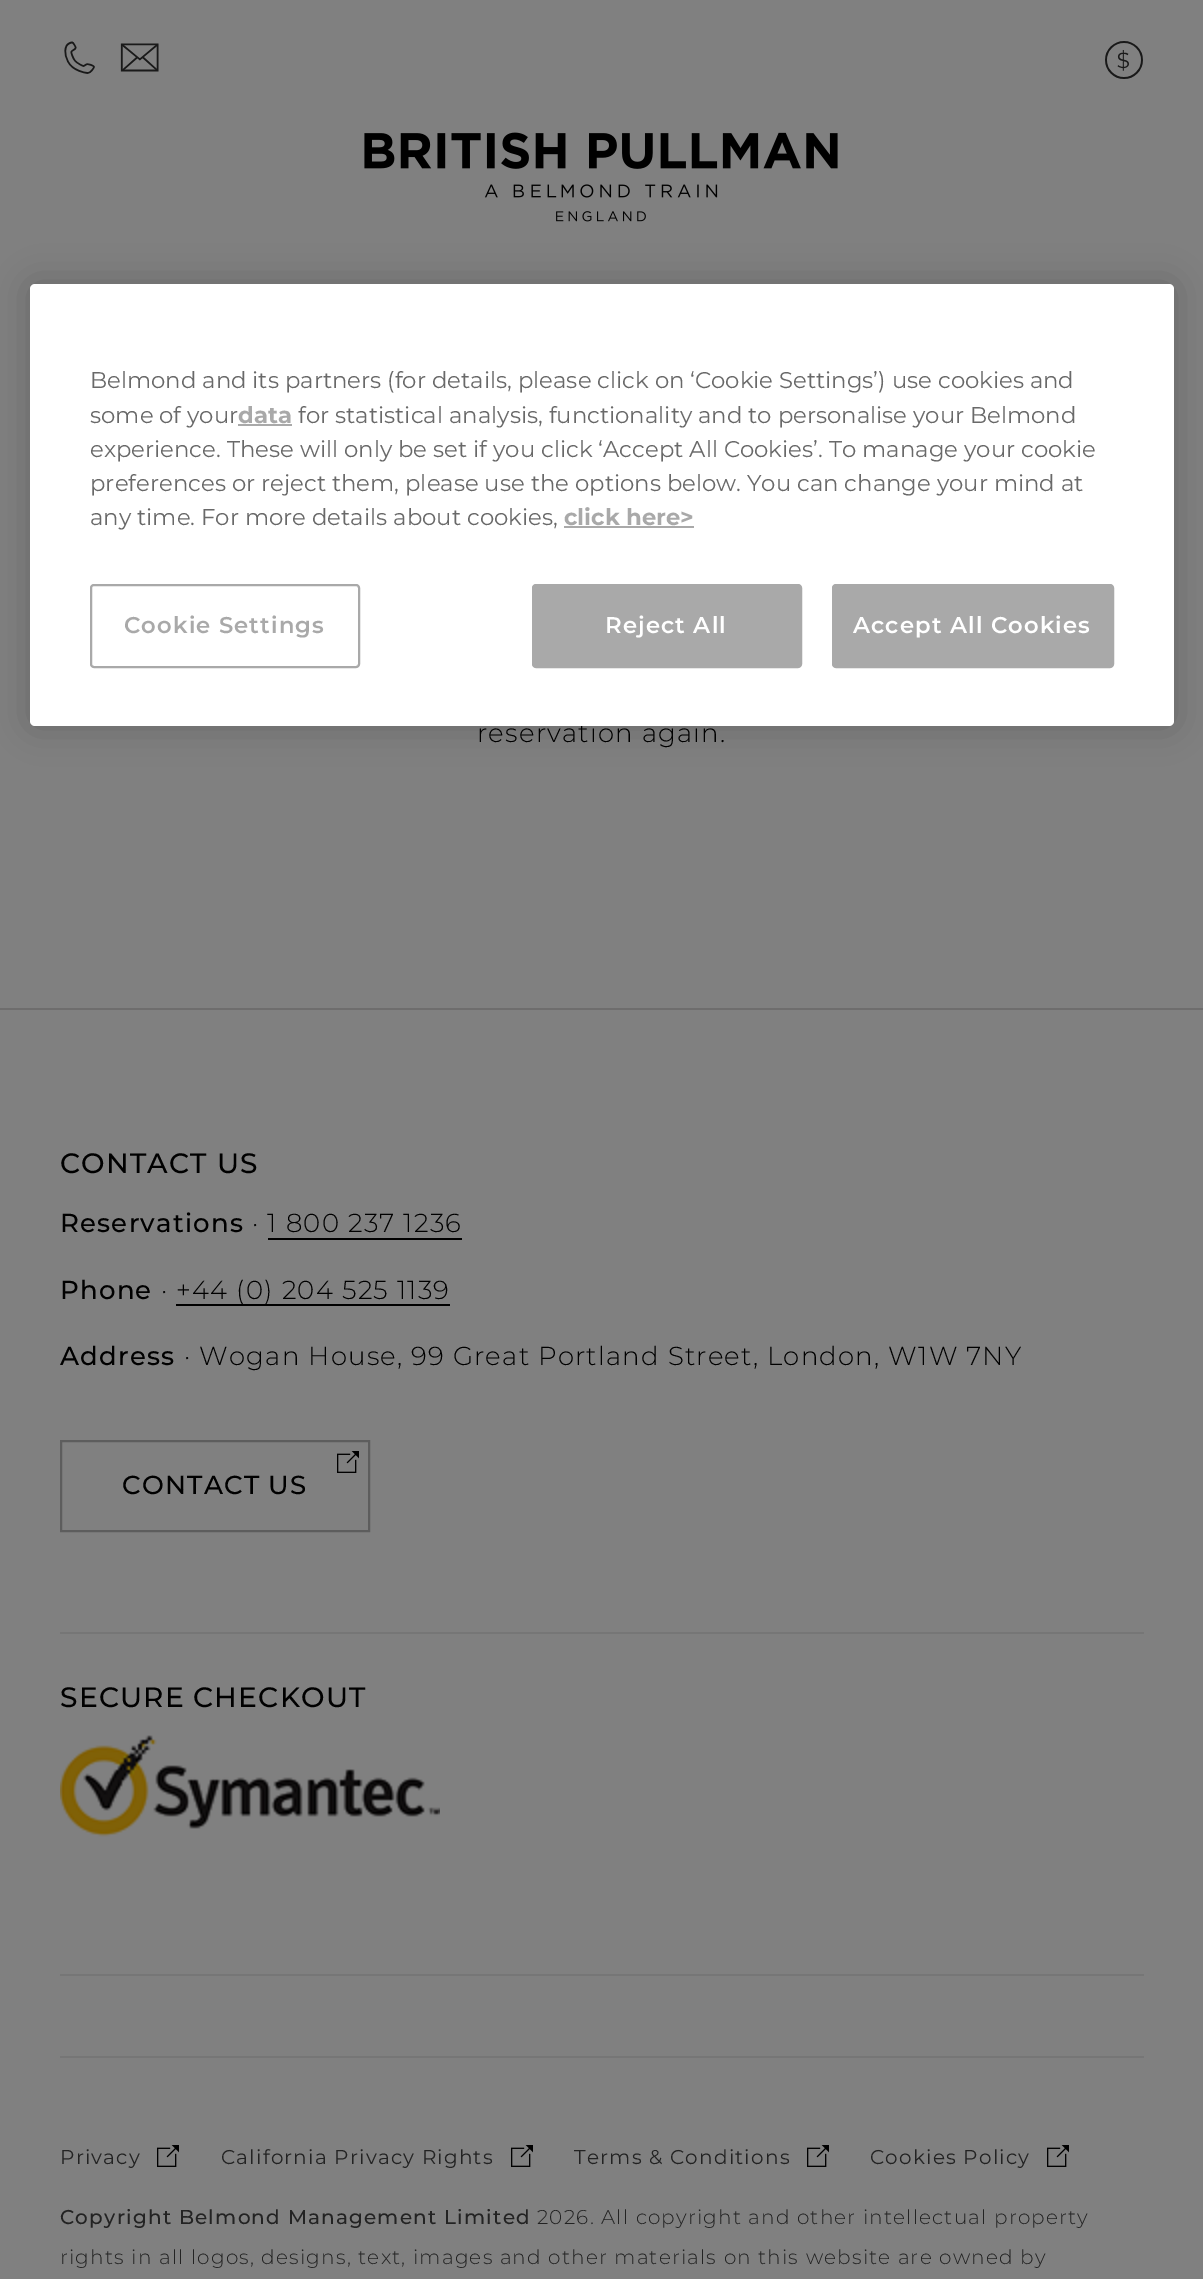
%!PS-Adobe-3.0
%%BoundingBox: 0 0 1203 2279
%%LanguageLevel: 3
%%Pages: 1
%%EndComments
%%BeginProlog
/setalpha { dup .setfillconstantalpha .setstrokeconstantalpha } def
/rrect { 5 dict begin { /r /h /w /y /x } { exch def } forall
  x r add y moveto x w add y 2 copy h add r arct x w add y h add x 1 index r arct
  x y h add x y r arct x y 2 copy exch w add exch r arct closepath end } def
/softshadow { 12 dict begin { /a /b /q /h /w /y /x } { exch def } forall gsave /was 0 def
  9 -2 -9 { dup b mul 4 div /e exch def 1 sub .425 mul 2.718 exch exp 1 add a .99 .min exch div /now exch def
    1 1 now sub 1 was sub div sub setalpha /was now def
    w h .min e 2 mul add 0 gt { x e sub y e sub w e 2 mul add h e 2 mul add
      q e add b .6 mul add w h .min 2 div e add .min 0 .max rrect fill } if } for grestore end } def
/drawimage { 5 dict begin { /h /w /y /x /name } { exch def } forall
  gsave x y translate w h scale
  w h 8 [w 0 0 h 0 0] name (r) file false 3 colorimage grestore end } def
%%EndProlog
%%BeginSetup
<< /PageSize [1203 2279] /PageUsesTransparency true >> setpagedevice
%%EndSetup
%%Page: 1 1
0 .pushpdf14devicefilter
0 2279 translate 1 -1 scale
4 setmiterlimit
0.502 setgray
0 0 1203 2279 rectfill
0 setgray
30 284 1144 442 5 18 0.2 softshadow
(images/1.raw) 64 41 31 33 drawimage
(images/2.raw) 120 43 39 29 drawimage
(images/3.raw) 1105 41 38 38 drawimage
(images/4.raw) 364 132 474 90 drawimage
0.431 0.427 0.427 setrgbcolor
0 1008 1203 2 rectfill
0.463 setgray
60 1632 1084 2 rectfill
0 setgray
268 1238 194 2 rectfill
176 1304 274 2 rectfill
(images/5.raw) 337 1451 22 22 drawimage
0.365 setgray
2 setlinewidth
61 1441 308 90 rectstroke
0.463 setgray
60 1974 1084 2 rectfill
(images/6.raw) 60 1735 380 102 drawimage
60 2056 1084 2 rectfill
(images/5.raw) 157 2145 22 22 drawimage
(images/5.raw) 511 2145 22 22 drawimage
(images/5.raw) 807 2145 22 22 drawimage
(images/5.raw) 1047 2145 22 22 drawimage
/Montserrat-Light [26 0 0 -26 0 0] selectfont
0 setgray
477 742 moveto 1.2 0 (reservation again.) ashow
1 setgray
30 284 1144 442 5 rrect fill
0.663 setgray
833 585 280 82 3 rrect gsave fill grestore
stroke
/Montserrat-SemiBold [22.75 0 0 -22.75 0 0] selectfont
1 setgray
853 633 moveto 1.1 0 (Accept All Cookies) ashow
0.663 setgray
533 585 268 82 3 rrect gsave fill grestore
stroke
1 setgray
605 633 moveto 1.1 0 (Reject All) ashow
0.663 setgray
91 585 268 82 3 rrect stroke
124 633 moveto 1.1 0 (Cookie Settings) ashow
/Montserrat-Bold [22.75 0 0 -22.75 0 0] selectfont
564 525 moveto (click here>) show
564 526 130 2 rectfill
/Montserrat-Regular [22.75 0 0 -22.75 0 0] selectfont
0.412 setgray
90 525 moveto (any time. For more details about cookies,) show
90 491 moveto (preferences or reject them, please use the options below. You can change your mind at) show
829 457 moveto (To manage your cookie) show
90 457 moveto (experience. These will only be set if you click ‘Accept All Cookies’.) show
298 423 moveto (for statistical analysis, functionality and to personalise your Belmond) show
/Montserrat-Bold [22.75 0 0 -22.75 0 0] selectfont
0.663 setgray
238 423 moveto (data) show
238 424 54 2 rectfill
/Montserrat-Regular [22.75 0 0 -22.75 0 0] selectfont
0.412 setgray
90 423 moveto (some of your) show
90 388 moveto (Belmond and its partners \(for details, please click on ‘Cookie Settings’\) use cookies and) show
/Montserrat-Medium [28 0 0 -28 0 0] selectfont
0 setgray
60 1173 moveto 1.2 0 (CONTACT US) ashow
/Montserrat-Medium [26 0 0 -26 0 0] selectfont
60 1232 moveto 1.2 0 (Reservations) ashow
/Montserrat-Light [26 0 0 -26 0 0] selectfont
252 1232 moveto 1.2 0 (· 1 800 237 1236) ashow
/Montserrat-Medium [26 0 0 -26 0 0] selectfont
60 1299 moveto 1.2 0 (Phone) ashow
/Montserrat-Light [26 0 0 -26 0 0] selectfont
161 1299 moveto 1.2 0 (·) ashow
176 1299 moveto 1.2 0 (+44 \(0\) 204 525 1139) ashow
/Montserrat-Medium [26 0 0 -26 0 0] selectfont
60 1365 moveto 1.2 0 (Address) ashow
/Montserrat-Light [26 0 0 -26 0 0] selectfont
184 1365 moveto 1.2 0 (· Wogan House, 99 Great Portland Street, London, W1W 7NY) ashow
/Montserrat-Medium [26 0 0 -26 0 0] selectfont
122 1494 moveto 1.2 0 (CONTACT US) ashow
/Montserrat-Medium [28 0 0 -28 0 0] selectfont
60 1707 moveto 1.2 0 (SECURE CHECKOUT) ashow
/Montserrat-Regular [20 0 0 -20 0 0] selectfont
0.137 setgray
60 2164 moveto 1.2 0 (Privacy) ashow
221 2164 moveto 1.2 0 (California Privacy Rights) ashow
574 2164 moveto 1.2 0 (Terms & Conditions) ashow
870 2164 moveto 1.2 0 (Cookies Policy) ashow
/Montserrat-Medium [20 0 0 -20 0 0] selectfont
60 2224 moveto 1.2 0 (Copyright Belmond Management Limited) ashow
/Montserrat-Light [20 0 0 -20 0 0] selectfont
537 2224 moveto 1.2 0 (2026. All copyright and other intellectual property) ashow
60 2264 moveto 1.2 0 (rights in all logos, designs, text, images and other materials on this website are owned by) ashow
.poppdf14devicefilter showpage
%%EOF
